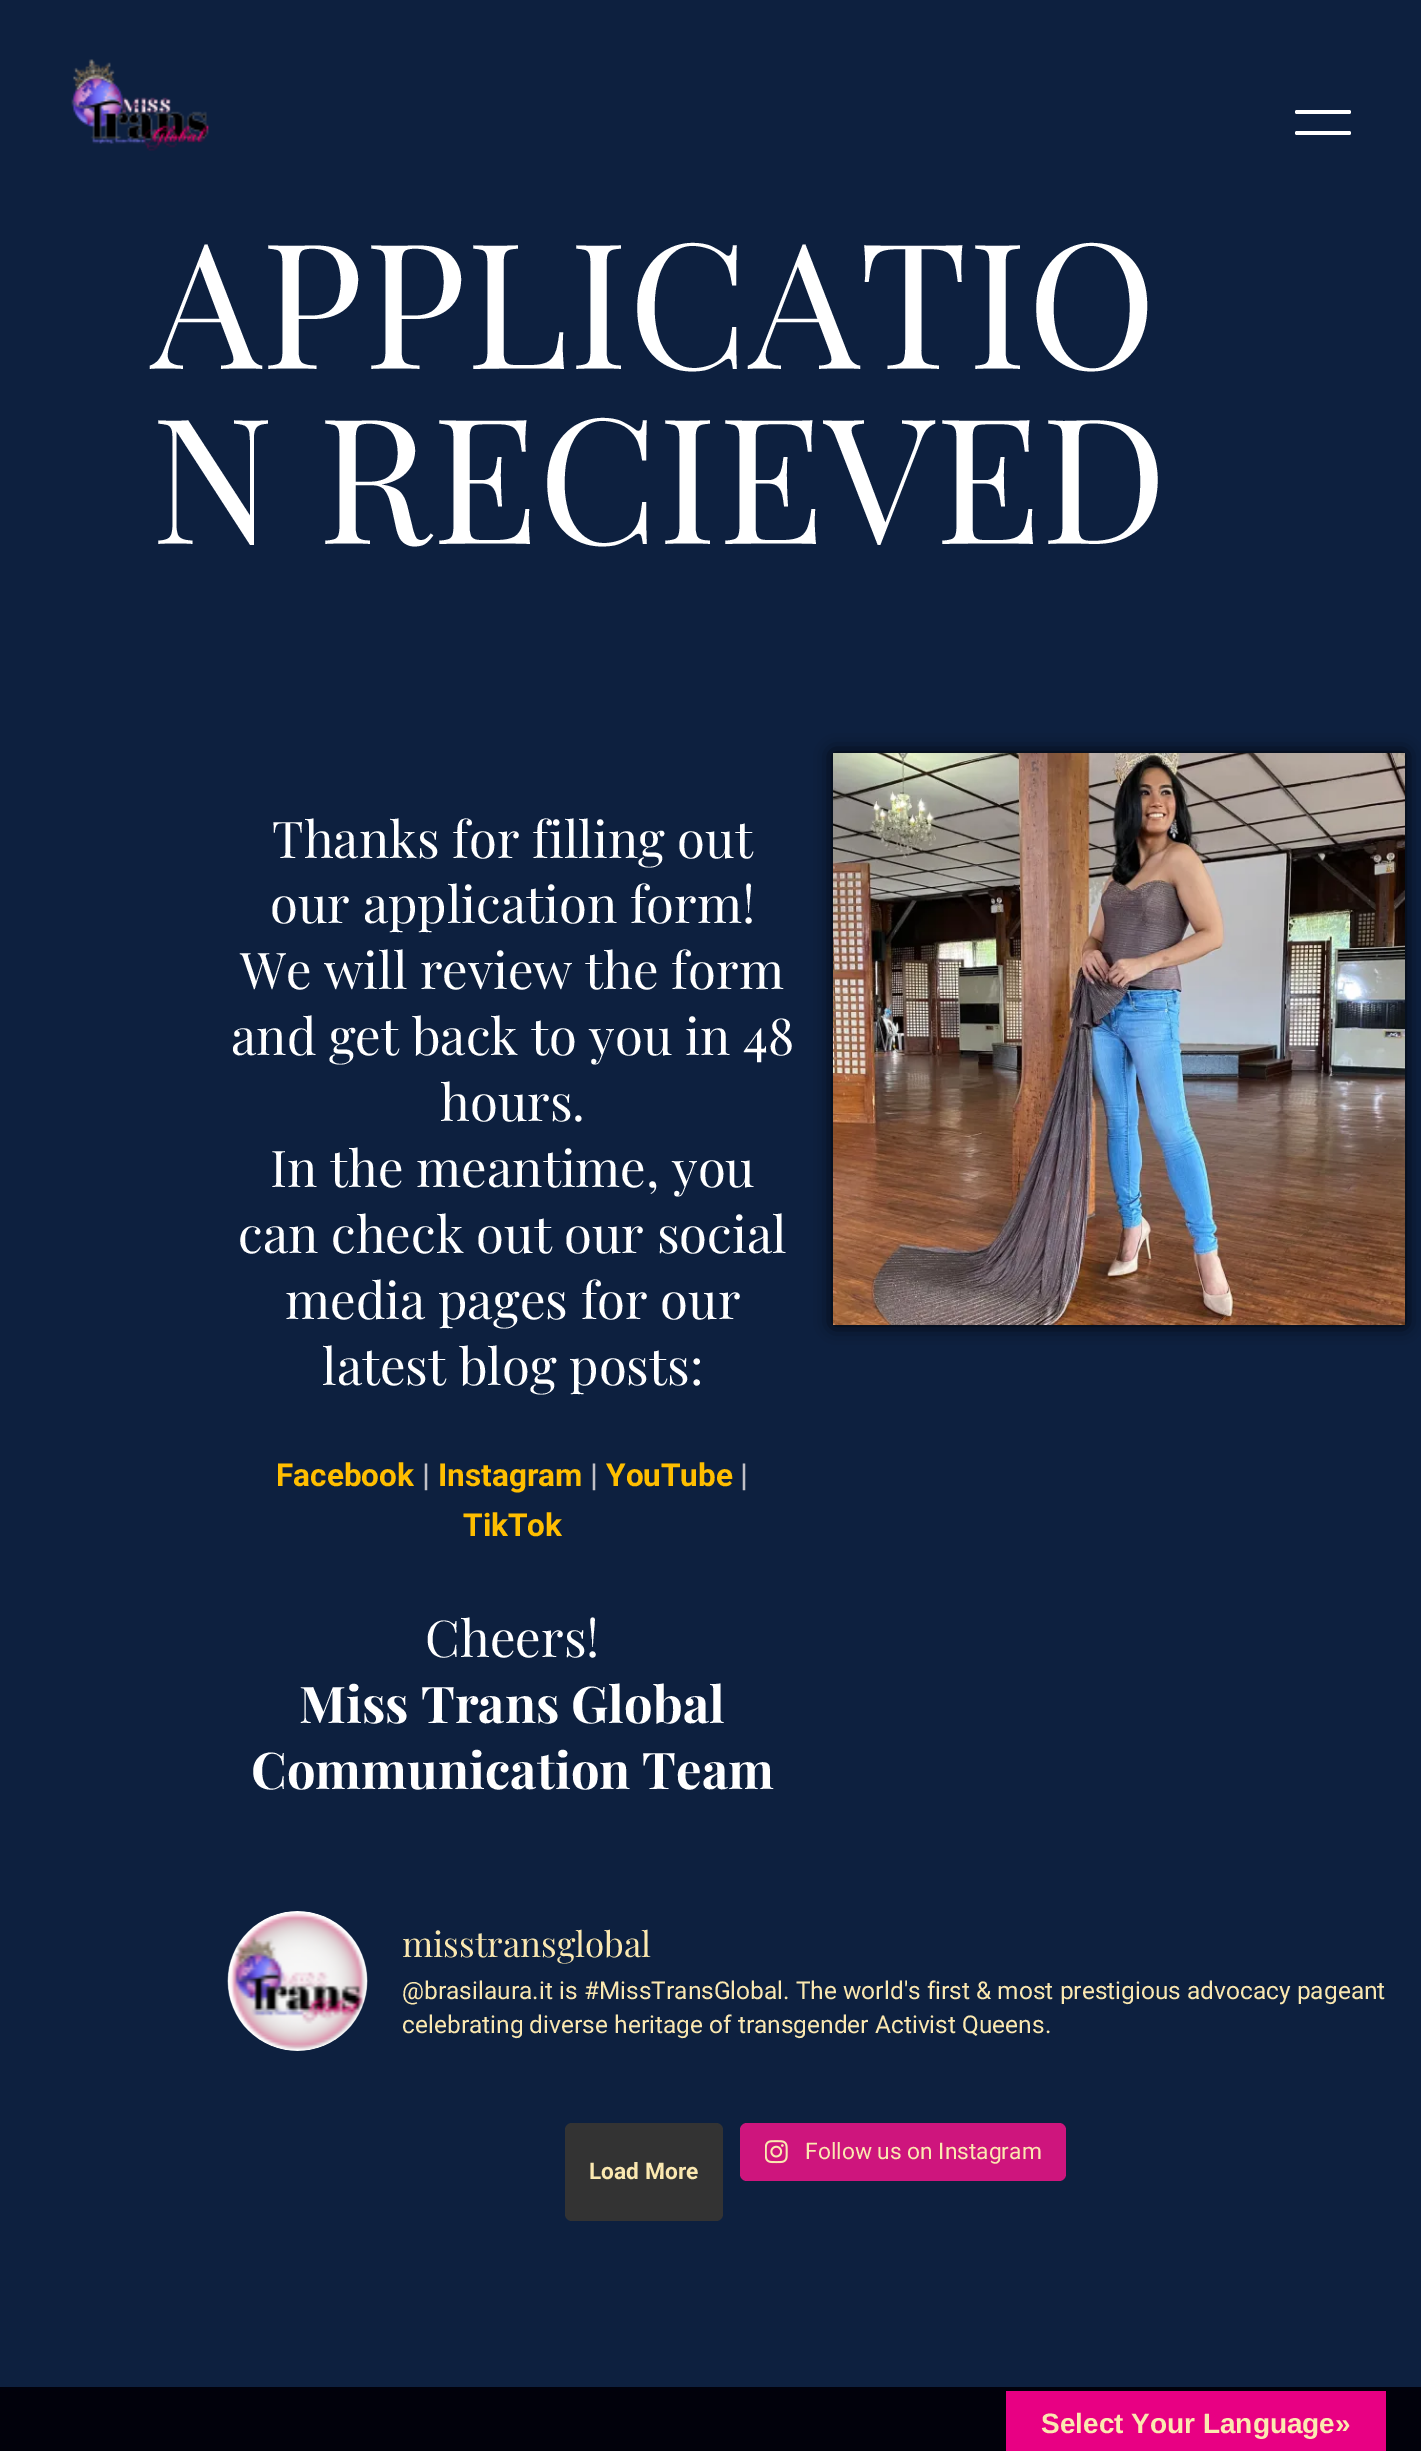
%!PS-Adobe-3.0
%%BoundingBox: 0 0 1421 2451
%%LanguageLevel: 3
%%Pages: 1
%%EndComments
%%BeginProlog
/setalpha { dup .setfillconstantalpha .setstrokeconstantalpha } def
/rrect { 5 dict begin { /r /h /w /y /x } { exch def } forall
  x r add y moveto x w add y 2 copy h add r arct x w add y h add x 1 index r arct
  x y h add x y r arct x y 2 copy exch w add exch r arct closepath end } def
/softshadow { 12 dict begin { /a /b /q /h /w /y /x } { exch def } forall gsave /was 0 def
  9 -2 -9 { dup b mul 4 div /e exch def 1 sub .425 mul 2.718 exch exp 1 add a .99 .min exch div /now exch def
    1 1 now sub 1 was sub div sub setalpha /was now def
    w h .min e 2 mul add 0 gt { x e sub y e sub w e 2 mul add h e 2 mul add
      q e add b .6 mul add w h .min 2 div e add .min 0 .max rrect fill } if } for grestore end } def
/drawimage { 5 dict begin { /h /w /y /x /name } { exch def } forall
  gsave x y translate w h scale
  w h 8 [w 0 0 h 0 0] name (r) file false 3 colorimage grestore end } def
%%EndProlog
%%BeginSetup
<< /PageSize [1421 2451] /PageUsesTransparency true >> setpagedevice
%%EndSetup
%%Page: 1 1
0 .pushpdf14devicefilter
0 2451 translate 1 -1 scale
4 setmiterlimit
0.051 0.125 0.247 setrgbcolor
0 0 1421 2451 rectfill
(images/1.raw) 71 59 138 92 drawimage
1 setgray
1295 110 56 4 2 rrect fill
1295 131 56 4 2 rrect fill
0 setgray
833 753 572 572 0 9 1 softshadow
(images/2.raw) 833 753 572 572 drawimage
(images/3.raw) 227 1911 141 140 drawimage
0.808 0.082 0.49 setrgbcolor
740 2123 326 58 7 rrect fill
(images/4.raw) 765 2140 23 24 drawimage
0.2 setgray
565 2123 158 98 7 rrect fill
0.004 0.004 0.043 setrgbcolor
0 2387 1421 64 rectfill
0.91 0 0.514 setrgbcolor
1006 2391 380 60 rectfill
/PlayfairDisplay-Regular [175 0 0 -175 0 0] selectfont
1 setgray
151 369 moveto (APPLICATIO) show
151 544 moveto (N RECIEVED) show
/PlayfairDisplay-Regular [50.75 0 0 -50.75 0 0] selectfont
272 858 moveto (Thanks for filling out) show
270 923 moveto (our application form!) show
240 989 moveto (We will review the form) show
231 1055 moveto (and get back to you in 48) show
440 1121 moveto (hours.) show
270 1187 moveto (In the meantime, you) show
238 1253 moveto (can check out our social) show
285 1319 moveto (media pages for our) show
322 1385 moveto (latest blog posts:) show
/Roboto-Bold [31.5 0 0 -31.5 0 0] selectfont
1 0.745 0 setrgbcolor
276 1486 moveto (Facebook) show
0.753 0.753 0.78 setrgbcolor
422 1486 moveto (|) show
1 0.745 0 setrgbcolor
438 1486 moveto (Instagram) show
0.753 0.753 0.78 setrgbcolor
590 1486 moveto (|) show
1 0.745 0 setrgbcolor
606 1486 moveto (YouTube) show
0.753 0.753 0.78 setrgbcolor
740 1486 moveto (|) show
1 0.745 0 setrgbcolor
463 1536 moveto (TikTok) show
/PlayfairDisplay-Regular [50.75 0 0 -50.75 0 0] selectfont
1 setgray
425 1657 moveto (Cheers!) show
/PlayfairDisplay-Bold [50.75 0 0 -50.75 0 0] selectfont
299 1723 moveto (Miss Trans Global) show
251 1789 moveto (Communication Team) show
/PlayfairDisplay-Regular [35 0 0 -35 0 0] selectfont
0.984 0.91 0.69 setrgbcolor
402 1957 moveto (misstransglobal) show
/Roboto-Regular [24.5 0 0 -24.5 0 0] selectfont
402 1999 moveto (@brasilaura.it is #MissTransGlobal. The world's first & most prestigious advocacy pageant) show
402 2033 moveto (celebrating diverse heritage of transgender Activist Queens.) show
/Roboto-Regular [22.75 0 0 -22.75 0 0] selectfont
805 2159 moveto (Follow us on Instagram) show
/Roboto-Bold [22.75 0 0 -22.75 0 0] selectfont
589 2179 moveto (Load More) show
/LiberationSans-Bold [28 0 0 -28 0 0] selectfont
1041 2433 moveto (Select Your Language») show
.poppdf14devicefilter showpage
%%EOF
